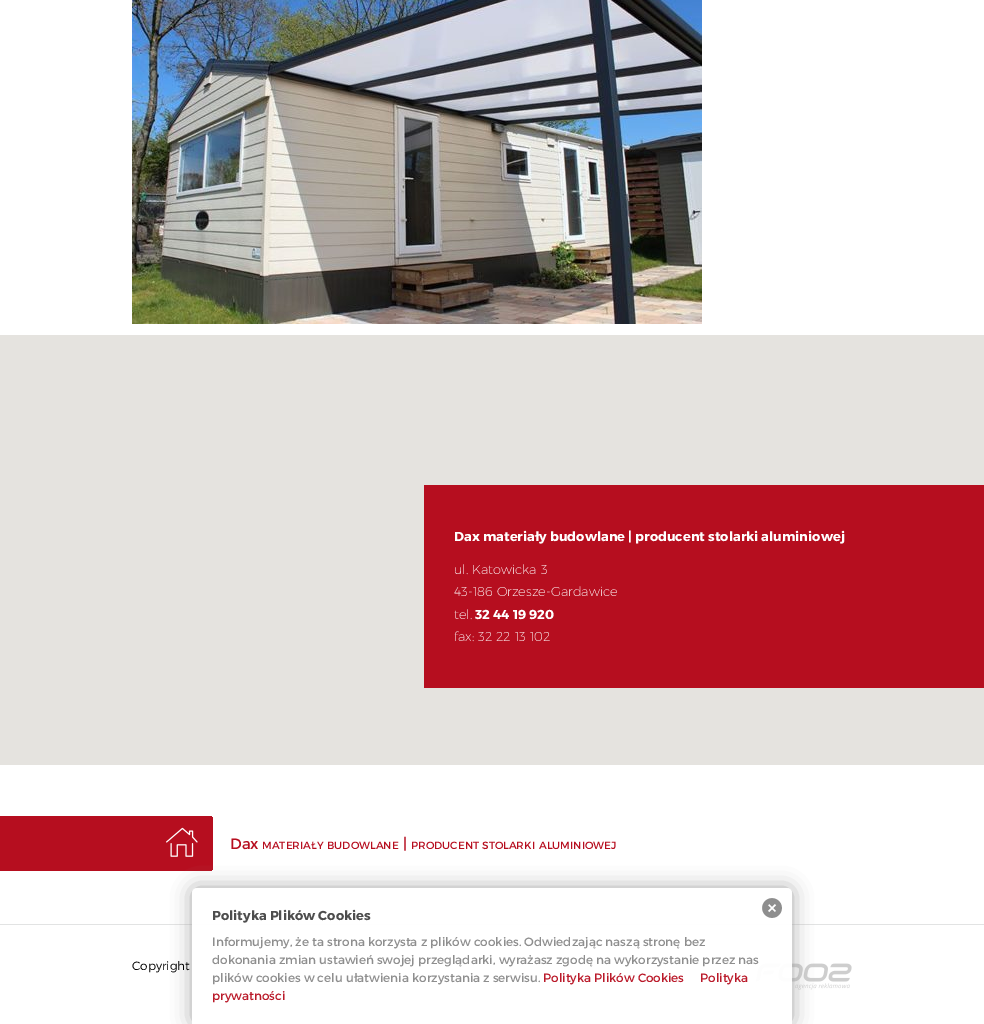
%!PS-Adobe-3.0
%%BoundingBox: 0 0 984 1024
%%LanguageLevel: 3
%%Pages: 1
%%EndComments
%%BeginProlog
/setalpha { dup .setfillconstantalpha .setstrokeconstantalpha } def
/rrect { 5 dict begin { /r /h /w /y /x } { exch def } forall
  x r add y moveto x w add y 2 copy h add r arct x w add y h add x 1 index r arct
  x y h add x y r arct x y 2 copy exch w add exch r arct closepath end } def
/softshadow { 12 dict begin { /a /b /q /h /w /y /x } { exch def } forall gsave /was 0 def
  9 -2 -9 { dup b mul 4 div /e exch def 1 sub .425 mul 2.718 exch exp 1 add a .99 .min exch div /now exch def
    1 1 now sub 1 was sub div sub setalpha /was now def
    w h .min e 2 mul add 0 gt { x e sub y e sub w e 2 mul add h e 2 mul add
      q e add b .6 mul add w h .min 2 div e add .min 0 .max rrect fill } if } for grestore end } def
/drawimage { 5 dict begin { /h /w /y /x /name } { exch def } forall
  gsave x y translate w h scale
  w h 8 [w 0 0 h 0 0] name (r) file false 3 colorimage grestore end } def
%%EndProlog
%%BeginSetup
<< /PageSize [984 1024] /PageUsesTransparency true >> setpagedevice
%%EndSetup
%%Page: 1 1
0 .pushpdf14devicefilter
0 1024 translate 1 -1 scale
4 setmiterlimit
1 setgray
0 0 984 1024 rectfill
(images/1.raw) 132 0 570 324 drawimage
0.898 0.89 0.875 setrgbcolor
0 335 984 430 rectfill
0.714 0.055 0.122 setrgbcolor
424 485 560 203 rectfill
0 816 212 55 rectfill
212 817 1 53 rectfill
(images/2.raw) 166 827 32 30 drawimage
0.886 0.89 0.89 setrgbcolor
0 924 984 1 rectfill
(images/3.raw) 756 963 96 27 drawimage
gsave
newpath 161 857 moveto 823 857 lineto 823 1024 lineto 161 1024 lineto closepath 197 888 moveto 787 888 lineto 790 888 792 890 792 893 curveto 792 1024 lineto 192 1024 lineto 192 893 lineto 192 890 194 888 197 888 curveto closepath eoclip newpath
0.631 setgray
192 888 600 136 5 10 0.95 softshadow
grestore
0.95 setalpha
1 setgray
newpath 197 888 moveto 787 888 lineto 790 888 792 890 792 893 curveto 792 1024 lineto 192 1024 lineto 192 893 lineto 192 890 194 888 197 888 curveto closepath fill
1 setalpha
(images/4.raw) 762 898 20 20 drawimage
/Montserrat-Bold [13 0 0 -13 0 0] selectfont
454 541 moveto (Dax materiały budowlane | producent stolarki aluminiowej) show
/Montserrat-ExtraLight [13 0 0 -13 0 0] selectfont
454 574 moveto (ul. Katowicka 3) show
454 596 moveto (43-186 Orzesze-Gardawice) show
454 619 moveto (tel.) show
/Montserrat-Bold [13 0 0 -13 0 0] selectfont
475 619 moveto (32 44 19 920) show
/Montserrat-ExtraLight [13 0 0 -13 0 0] selectfont
454 641 moveto (fax: 32 22 13 102) show
/Montserrat-Regular [15 0 0 -15 0 0] selectfont
0.714 0.055 0.122 setrgbcolor
230 849 moveto (Dax) show
/Montserrat-Regular [10.5 0 0 -10.5 0 0] selectfont
262 849 moveto (MATERIAŁY) show
327 849 moveto (BUDOWLANE) show
/Montserrat-Regular [15 0 0 -15 0 0] selectfont
403 849 moveto (|) show
/Montserrat-Regular [10.5 0 0 -10.5 0 0] selectfont
411 849 moveto (PRODUCENT) show
482 849 moveto (STOLARKI) show
539 849 moveto (ALUMINIOWEJ) show
/Montserrat-Light [12 0 0 -12 0 0] selectfont
0 setgray
132 970 moveto (Copyright) show
/Montserrat-Bold [13 0 0 -13 0 0] selectfont
0.302 setgray
212 920 moveto (Polityka Plików Cookies) show
/Montserrat-Regular [12 0 0 -12 0 0] selectfont
0.557 setgray
212 946 moveto (Informujemy, że ta strona korzysta z plików cookies. Odwiedzając naszą stronę bez) show
212 964 moveto (dokonania zmian ustawień swojej przeglądarki, wyrażasz zgodę na wykorzystanie przez nas) show
212 982 moveto (plików cookies w celu ułatwienia korzystania z serwisu.) show
0.729 0.102 0.165 setrgbcolor
543 982 moveto (Polityka Plików Cookies) show
700 982 moveto (Polityka) show
212 1000 moveto (prywatności) show
.poppdf14devicefilter showpage
%%EOF
